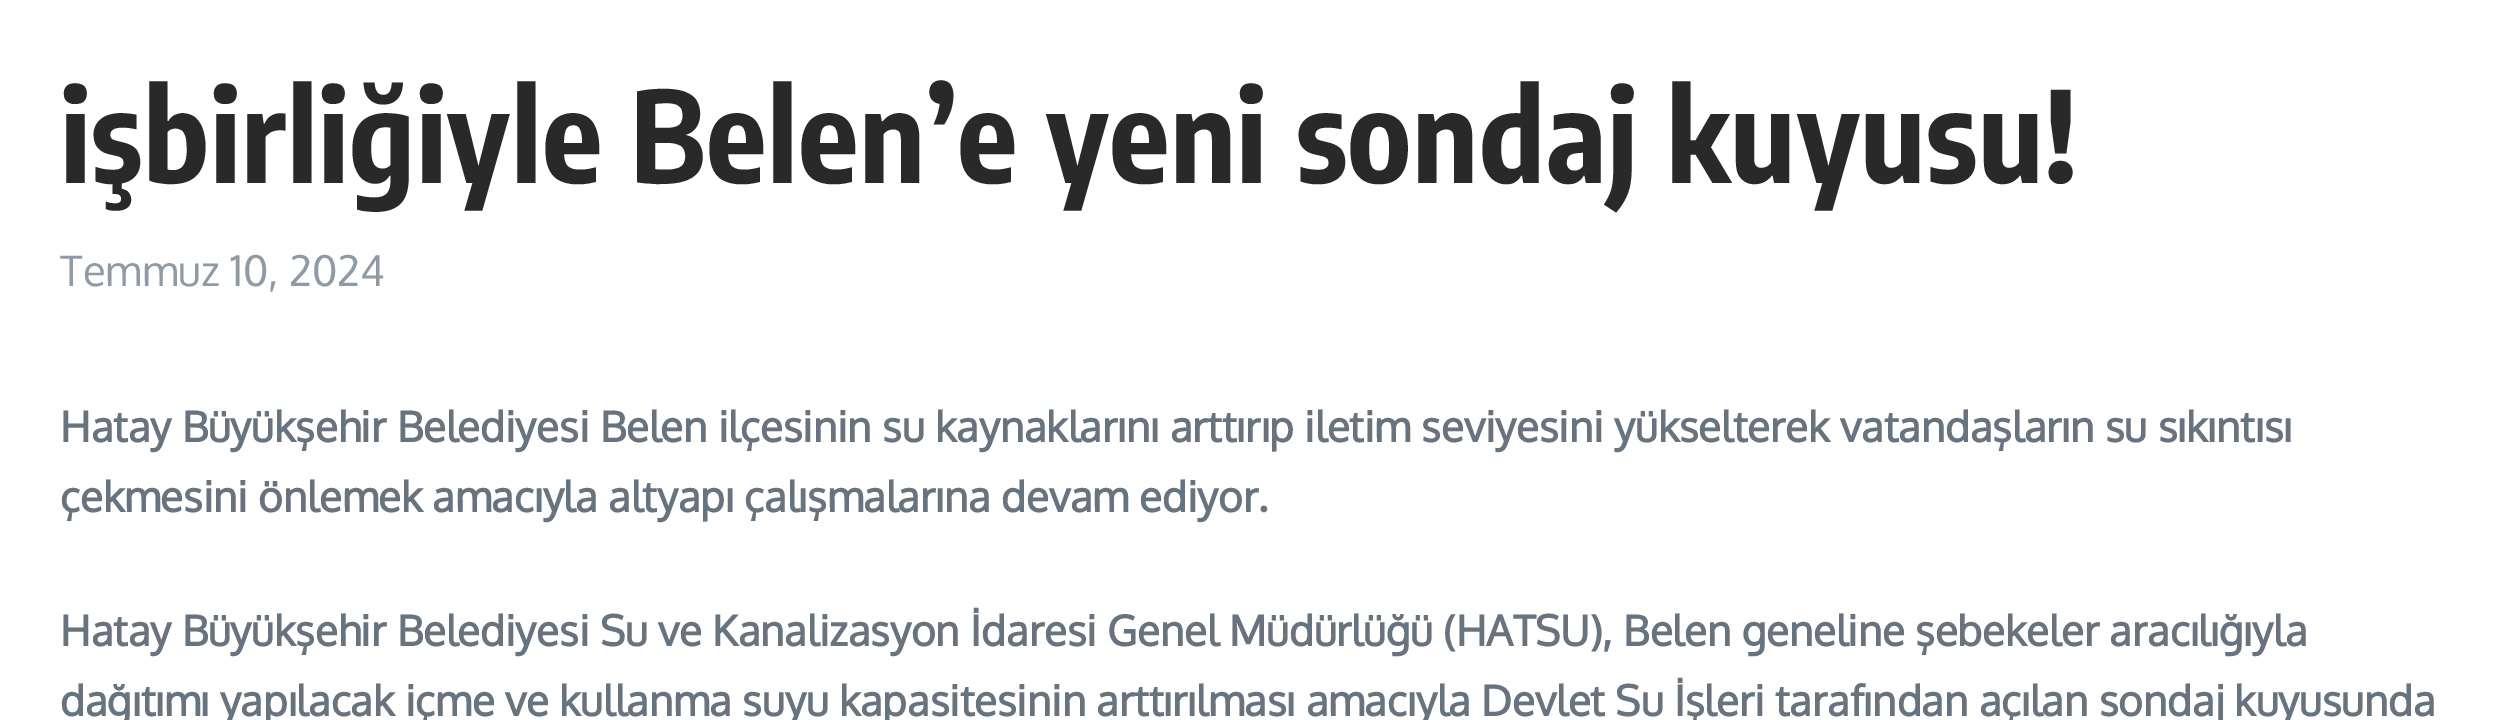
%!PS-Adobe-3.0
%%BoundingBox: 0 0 2500 720
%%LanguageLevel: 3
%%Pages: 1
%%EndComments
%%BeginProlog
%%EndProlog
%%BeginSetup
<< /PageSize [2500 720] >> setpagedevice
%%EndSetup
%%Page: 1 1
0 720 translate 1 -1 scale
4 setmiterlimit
1 setgray
0 0 2500 720 rectfill
/EncodeSansCondensed-Bold [126 0 0 -126 0 0] selectfont
0.161 setgray
60 183 moveto 0.6 0 (işbirliğiyle Belen’e yeni sondaj kuyusu!) ashow
/Oxygen-Regular [42 0 0 -42 0 0] selectfont
0.557 0.608 0.655 setrgbcolor
60 286 moveto (Temmuz 10, 2024) show
/Oxygen-Bold [42 0 0 -42 0 0] selectfont
0.404 0.451 0.494 setrgbcolor
60 442 moveto (Hatay Büyükşehir Belediyesi Belen ilçesinin su kaynaklarını arttırıp iletim seviyesini yükselterek vatandaşların su sıkıntısı) show
60 512 moveto (çekmesini önlemek amacıyla altyapı çalışmalarına devam ediyor.) show
60 646 moveto (Hatay Büyükşehir Belediyesi Su ve Kanalizasyon İdaresi Genel Müdürlüğü \(HATSU\), Belen geneline şebekeler aracılığıyla) show
60 716 moveto (dağıtımı yapılacak içme ve kullanma suyu kapasitesinin arttırılması amacıyla Devlet Su İşleri tarafından açılan sondaj kuyusunda) show
showpage
%%EOF
